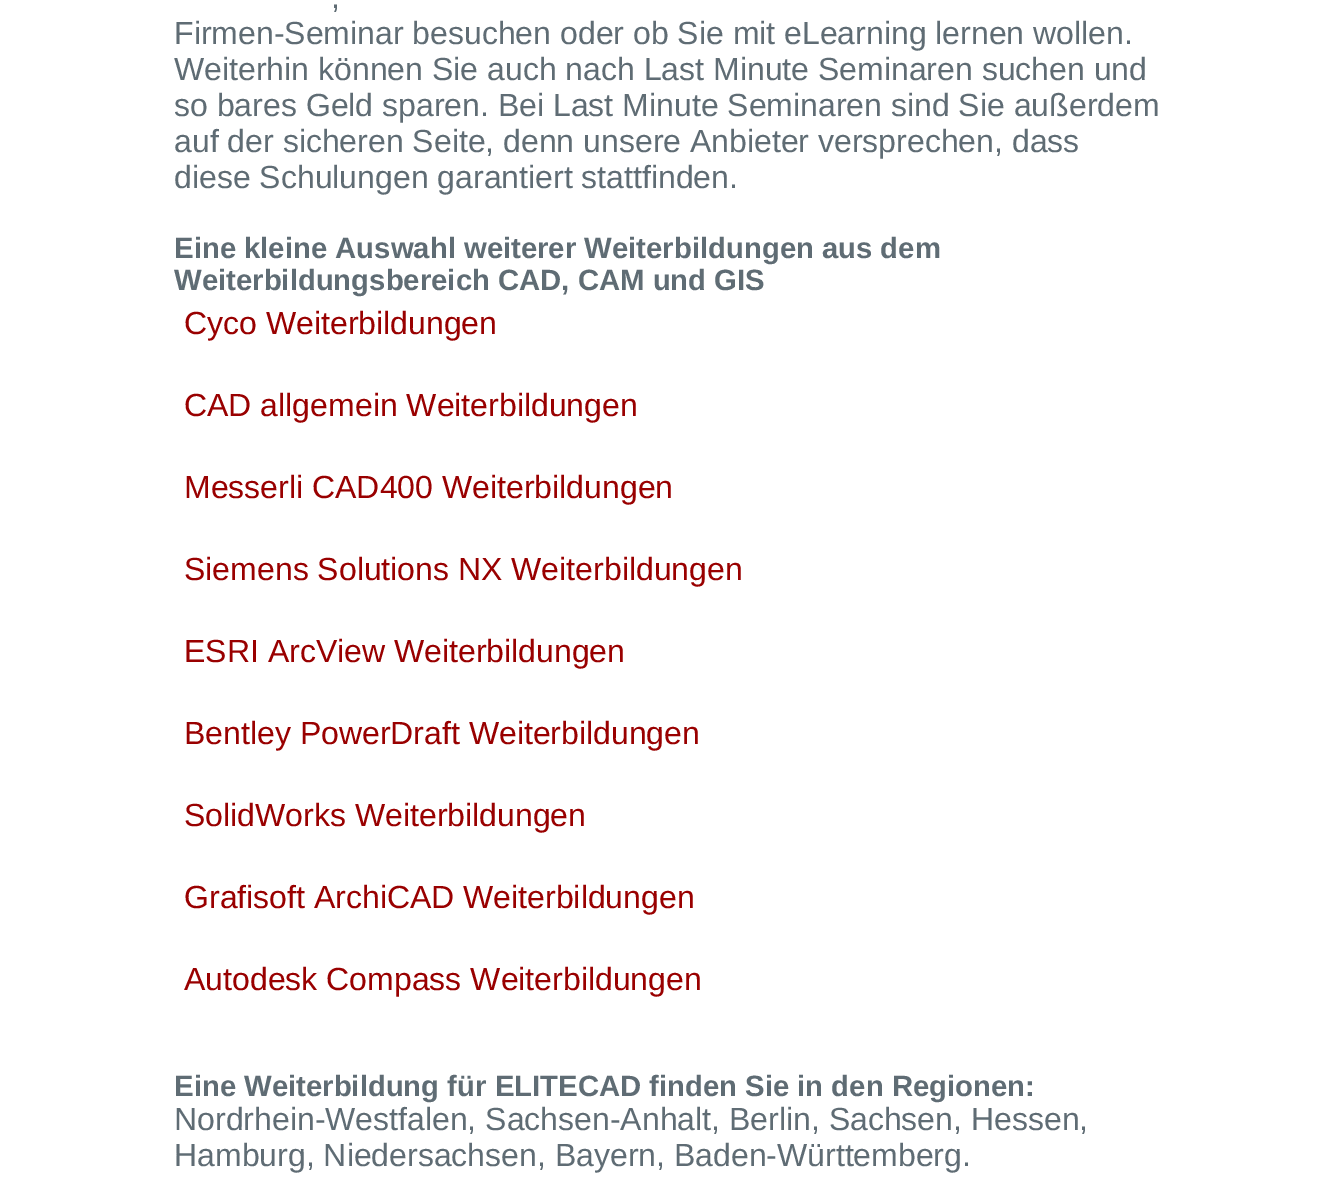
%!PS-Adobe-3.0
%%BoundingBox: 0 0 1331 1199
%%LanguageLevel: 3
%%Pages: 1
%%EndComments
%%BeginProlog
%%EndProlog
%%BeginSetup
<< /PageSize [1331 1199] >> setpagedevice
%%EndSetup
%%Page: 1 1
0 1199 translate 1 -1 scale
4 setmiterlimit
1 setgray
0 0 1331 1199 rectfill
/LiberationSans-Regular [32 0 0 -32 0 0] selectfont
0.373 0.424 0.455 setrgbcolor
331 8 moveto (,) show
174 44 moveto (Firmen-Seminar besuchen oder ob Sie mit eLearning lernen wollen.) show
174 80 moveto (Weiterhin können Sie auch nach Last Minute Seminaren suchen und) show
174 116 moveto (so bares Geld sparen. Bei Last Minute Seminaren sind Sie außerdem) show
174 152 moveto (auf der sicheren Seite, denn unsere Anbieter versprechen, dass) show
174 188 moveto (diese Schulungen garantiert stattfinden.) show
/LiberationSans-Bold [29.3 0 0 -29.3 0 0] selectfont
174 258 moveto (Eine kleine Auswahl weiterer Weiterbildungen aus dem) show
174 290 moveto (Weiterbildungsbereich CAD, CAM und GIS) show
/LiberationSans-Regular [32 0 0 -32 0 0] selectfont
0.6 0 0 setrgbcolor
184 334 moveto (Cyco Weiterbildungen) show
184 416 moveto (CAD allgemein Weiterbildungen) show
184 498 moveto (Messerli CAD400 Weiterbildungen) show
184 580 moveto (Siemens Solutions NX Weiterbildungen) show
184 662 moveto (ESRI ArcView Weiterbildungen) show
184 744 moveto (Bentley PowerDraft Weiterbildungen) show
184 826 moveto (SolidWorks Weiterbildungen) show
184 908 moveto (Grafisoft ArchiCAD Weiterbildungen) show
184 990 moveto (Autodesk Compass Weiterbildungen) show
/LiberationSans-Bold [29.3 0 0 -29.3 0 0] selectfont
0.373 0.424 0.455 setrgbcolor
174 1096 moveto (Eine Weiterbildung für ELITECAD finden Sie in den Regionen:) show
/LiberationSans-Regular [32 0 0 -32 0 0] selectfont
174 1130 moveto (Nordrhein-Westfalen, Sachsen-Anhalt, Berlin, Sachsen, Hessen,) show
174 1166 moveto (Hamburg, Niedersachsen, Bayern, Baden-Württemberg.) show
showpage
%%EOF
